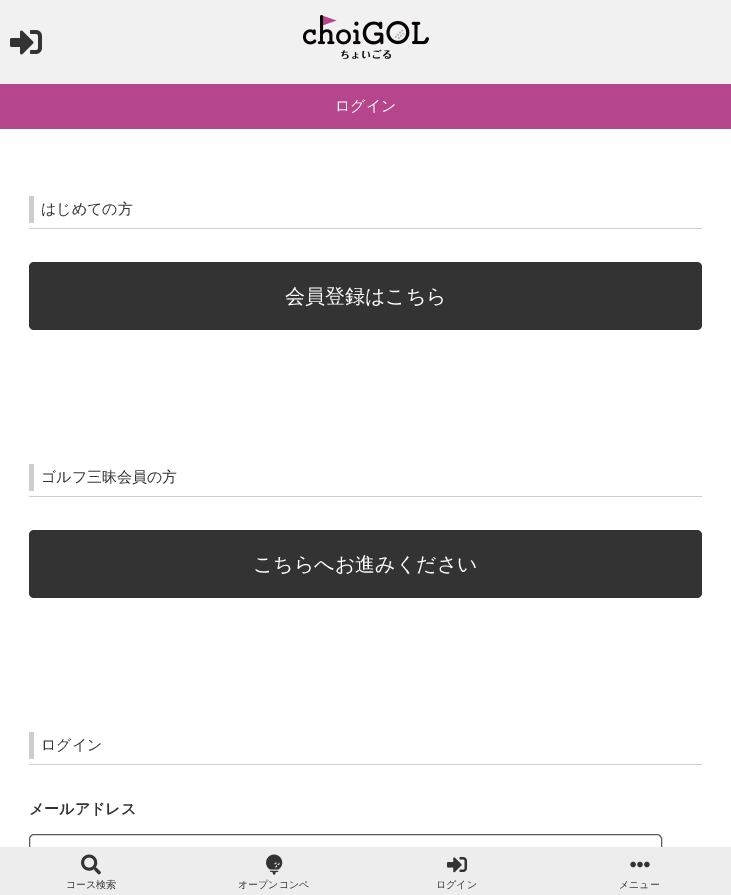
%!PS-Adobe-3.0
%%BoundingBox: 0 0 731 895
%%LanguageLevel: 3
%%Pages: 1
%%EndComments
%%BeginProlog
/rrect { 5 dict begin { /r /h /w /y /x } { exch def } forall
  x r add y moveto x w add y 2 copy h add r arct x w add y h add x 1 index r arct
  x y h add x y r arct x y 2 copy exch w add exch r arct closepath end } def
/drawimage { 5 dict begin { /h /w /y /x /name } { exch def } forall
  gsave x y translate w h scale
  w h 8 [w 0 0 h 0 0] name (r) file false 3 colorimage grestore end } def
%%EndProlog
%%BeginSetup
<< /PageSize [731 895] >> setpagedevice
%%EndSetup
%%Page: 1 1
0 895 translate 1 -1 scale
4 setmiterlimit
1 setgray
0 0 731 895 rectfill
0.945 setgray
0 0 731 84 rectfill
(images/1.raw) 10 30 32 25 drawimage
(images/2.raw) 303 15 126 44 drawimage
0.714 0.275 0.545 setrgbcolor
0 84 731 45 rectfill
0.808 setgray
29 228 673 1 rectfill
0.804 setgray
29 196 5 27 rectfill
0.2 setgray
29 262 673 68 5 rrect fill
0.808 setgray
29 496 673 1 rectfill
0.804 setgray
29 464 5 27 rectfill
0.2 setgray
29 530 673 68 5 rrect fill
0.808 setgray
29 764 673 1 rectfill
0.804 setgray
29 732 5 27 rectfill
0.357 setgray
29.5 834.5 632 45 4.5 rrect stroke
0.933 0.929 0.929 setrgbcolor
0 847 731 48 rectfill
(images/3.raw) 81 854 20 21 drawimage
(images/4.raw) 266 854 17 21 drawimage
(images/5.raw) 447 857 20 16 drawimage
(images/6.raw) 630 861 20 7 drawimage
/WenQuanYiZenHei-Medium [15 0 0 -15 0 0] selectfont
1 setgray
335 111 moveto (ログイン) show
0.2 setgray
41 214 moveto (はじめての方) show
/WenQuanYiZenHei-Medium [20 0 0 -20 0 0] selectfont
1 setgray
285 303 moveto (会員登録はこちら) show
/WenQuanYiZenHei-Medium [15 0 0 -15 0 0] selectfont
0.2 setgray
41 482 moveto (ゴルフ三昧会員の方) show
/WenQuanYiZenHei-Medium [20 0 0 -20 0 0] selectfont
1 setgray
253 571 moveto (こちらへお進みください) show
/WenQuanYiZenHei-Medium [15 0 0 -15 0 0] selectfont
0.2 setgray
41 750 moveto (ログイン) show
/WenQuanYiZenHei-Bold [15 0 0 -15 0 0] selectfont
29 814 moveto (メールアドレス) show
/WenQuanYiZenHei-Medium [10 0 0 -10 0 0] selectfont
66 888 moveto (コース検索) show
238 888 moveto (オープンコンペ) show
436 888 moveto (ログイン) show
619 888 moveto (メニュー) show
showpage
%%EOF
